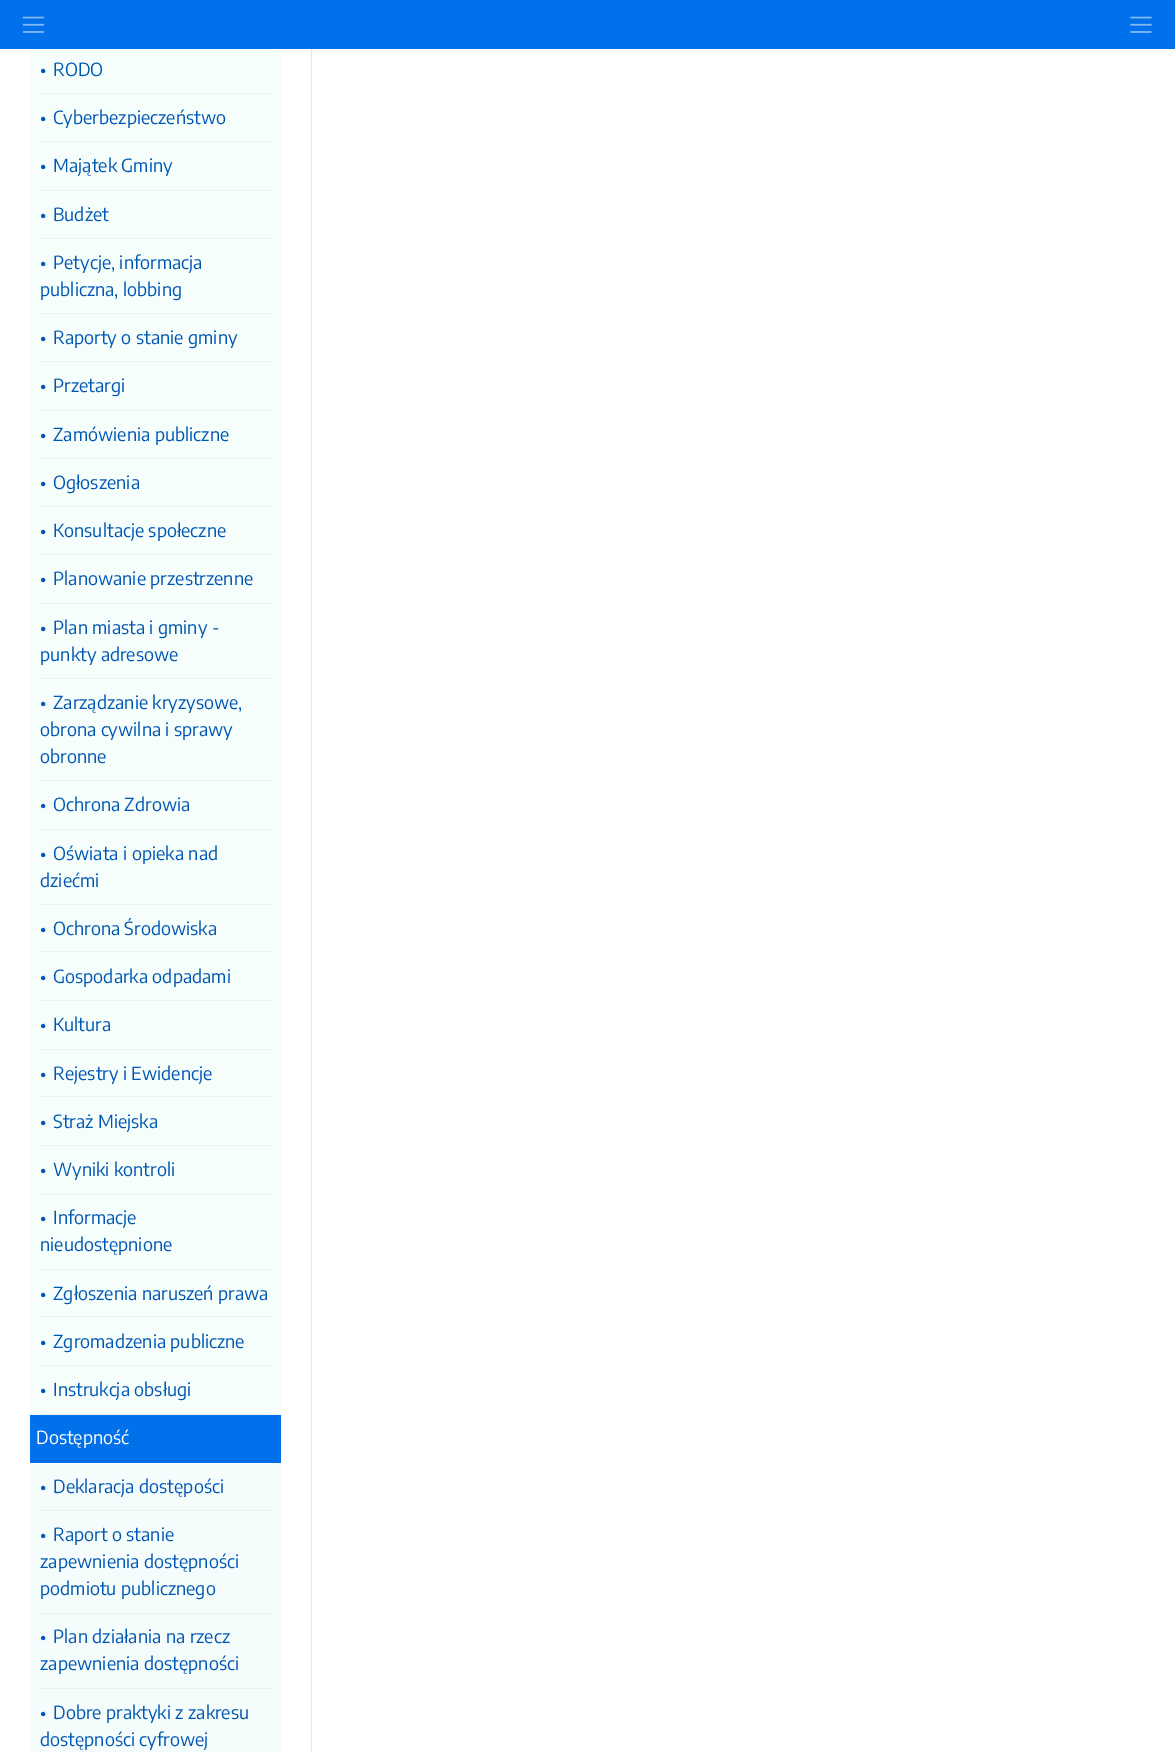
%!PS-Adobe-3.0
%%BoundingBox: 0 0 1175 1752
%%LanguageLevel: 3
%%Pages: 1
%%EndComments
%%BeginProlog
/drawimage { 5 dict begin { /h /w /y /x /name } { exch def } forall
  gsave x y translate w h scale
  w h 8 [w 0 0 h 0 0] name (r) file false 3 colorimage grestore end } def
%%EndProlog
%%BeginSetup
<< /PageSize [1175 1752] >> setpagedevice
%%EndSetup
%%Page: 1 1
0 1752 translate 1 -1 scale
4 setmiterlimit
1 setgray
0 0 1175 1752 rectfill
0 0.443 0.922 setrgbcolor
0 0 1175 49 rectfill
(images/1.raw) 22 16 23 17 drawimage
(images/2.raw) 1130 16 22 17 drawimage
0.902 setgray
311 49 1 1703 rectfill
0.965 0.996 0.988 setrgbcolor
30 49 251 1366 rectfill
0.918 0.945 0.937 setrgbcolor
40 93 231 1 rectfill
40 141 231 1 rectfill
40 190 231 1 rectfill
40 238 231 1 rectfill
40 313 231 1 rectfill
40 361 231 1 rectfill
40 410 231 1 rectfill
40 458 231 1 rectfill
40 506 231 1 rectfill
40 554 231 1 rectfill
40 603 231 1 rectfill
40 678 231 1 rectfill
40 780 231 1 rectfill
40 829 231 1 rectfill
40 904 231 1 rectfill
40 951 231 1 rectfill
40 1000 231 1 rectfill
40 1049 231 1 rectfill
40 1096 231 1 rectfill
40 1145 231 1 rectfill
40 1194 231 1 rectfill
40 1269 231 1 rectfill
40 1316 231 1 rectfill
40 1365 231 1 rectfill
40 1414 231 1 rectfill
0 0.443 0.922 setrgbcolor
30 1415 251 48 rectfill
0 0.42 0.875 setrgbcolor
30 1461 251 1 rectfill
0.961 0.992 0.988 setrgbcolor
30 1463 251 289 rectfill
0.914 0.941 0.937 setrgbcolor
40 1510 231 1 rectfill
40 1613 231 1 rectfill
40 1688 231 1 rectfill
/EncodeSansCondensed-Regular [18 0 0 -18 0 0] selectfont
0 0.337 0.702 setrgbcolor
40 76 moveto (•) show
53 76 moveto (RODO) show
40 124 moveto (•) show
53 124 moveto (Cyberbezpieczeństwo) show
40 172 moveto (•) show
53 172 moveto (Majątek Gminy) show
40 221 moveto (•) show
53 221 moveto (Budżet) show
40 269 moveto (•) show
53 269 moveto (Petycje, informacja) show
40 296 moveto (publiczna, lobbing) show
40 344 moveto (•) show
53 344 moveto (Raporty o stanie gminy) show
40 392 moveto (•) show
53 392 moveto (Przetargi) show
40 441 moveto (•) show
53 441 moveto (Zamówienia publiczne) show
40 489 moveto (•) show
53 489 moveto (Ogłoszenia) show
40 537 moveto (•) show
53 537 moveto (Konsultacje społeczne) show
40 585 moveto (•) show
53 585 moveto (Planowanie przestrzenne) show
40 634 moveto (•) show
53 634 moveto (Plan miasta i gminy -) show
40 661 moveto (punkty adresowe) show
40 709 moveto (•) show
53 709 moveto (Zarządzanie kryzysowe,) show
40 736 moveto (obrona cywilna i sprawy) show
40 763 moveto (obronne) show
40 811 moveto (•) show
53 811 moveto (Ochrona Zdrowia) show
40 860 moveto (•) show
53 860 moveto (Oświata i opieka nad) show
40 887 moveto (dziećmi) show
40 935 moveto (•) show
53 935 moveto (Ochrona Środowiska) show
40 983 moveto (•) show
53 983 moveto (Gospodarka odpadami) show
40 1031 moveto (•) show
53 1031 moveto (Kultura) show
40 1080 moveto (•) show
53 1080 moveto (Rejestry i Ewidencje) show
40 1128 moveto (•) show
53 1128 moveto (Straż Miejska) show
40 1176 moveto (•) show
53 1176 moveto (Wyniki kontroli) show
40 1224 moveto (•) show
53 1224 moveto (Informacje) show
40 1251 moveto (nieudostępnione) show
40 1300 moveto (•) show
53 1300 moveto (Zgłoszenia naruszeń prawa) show
40 1348 moveto (•) show
53 1348 moveto (Zgromadzenia publiczne) show
40 1396 moveto (•) show
53 1396 moveto (Instrukcja obsługi) show
1 setgray
36 1444 moveto (Dostępność) show
0 0.337 0.702 setrgbcolor
40 1493 moveto (•) show
53 1493 moveto (Deklaracja dostępości) show
40 1541 moveto (•) show
53 1541 moveto (Raport o stanie) show
40 1568 moveto (zapewnienia dostępności) show
40 1595 moveto (podmiotu publicznego) show
40 1643 moveto (•) show
53 1643 moveto (Plan działania na rzecz) show
40 1670 moveto (zapewnienia dostępności) show
40 1719 moveto (•) show
53 1719 moveto (Dobre praktyki z zakresu) show
40 1746 moveto (dostępności cyfrowej) show
showpage
%%EOF
